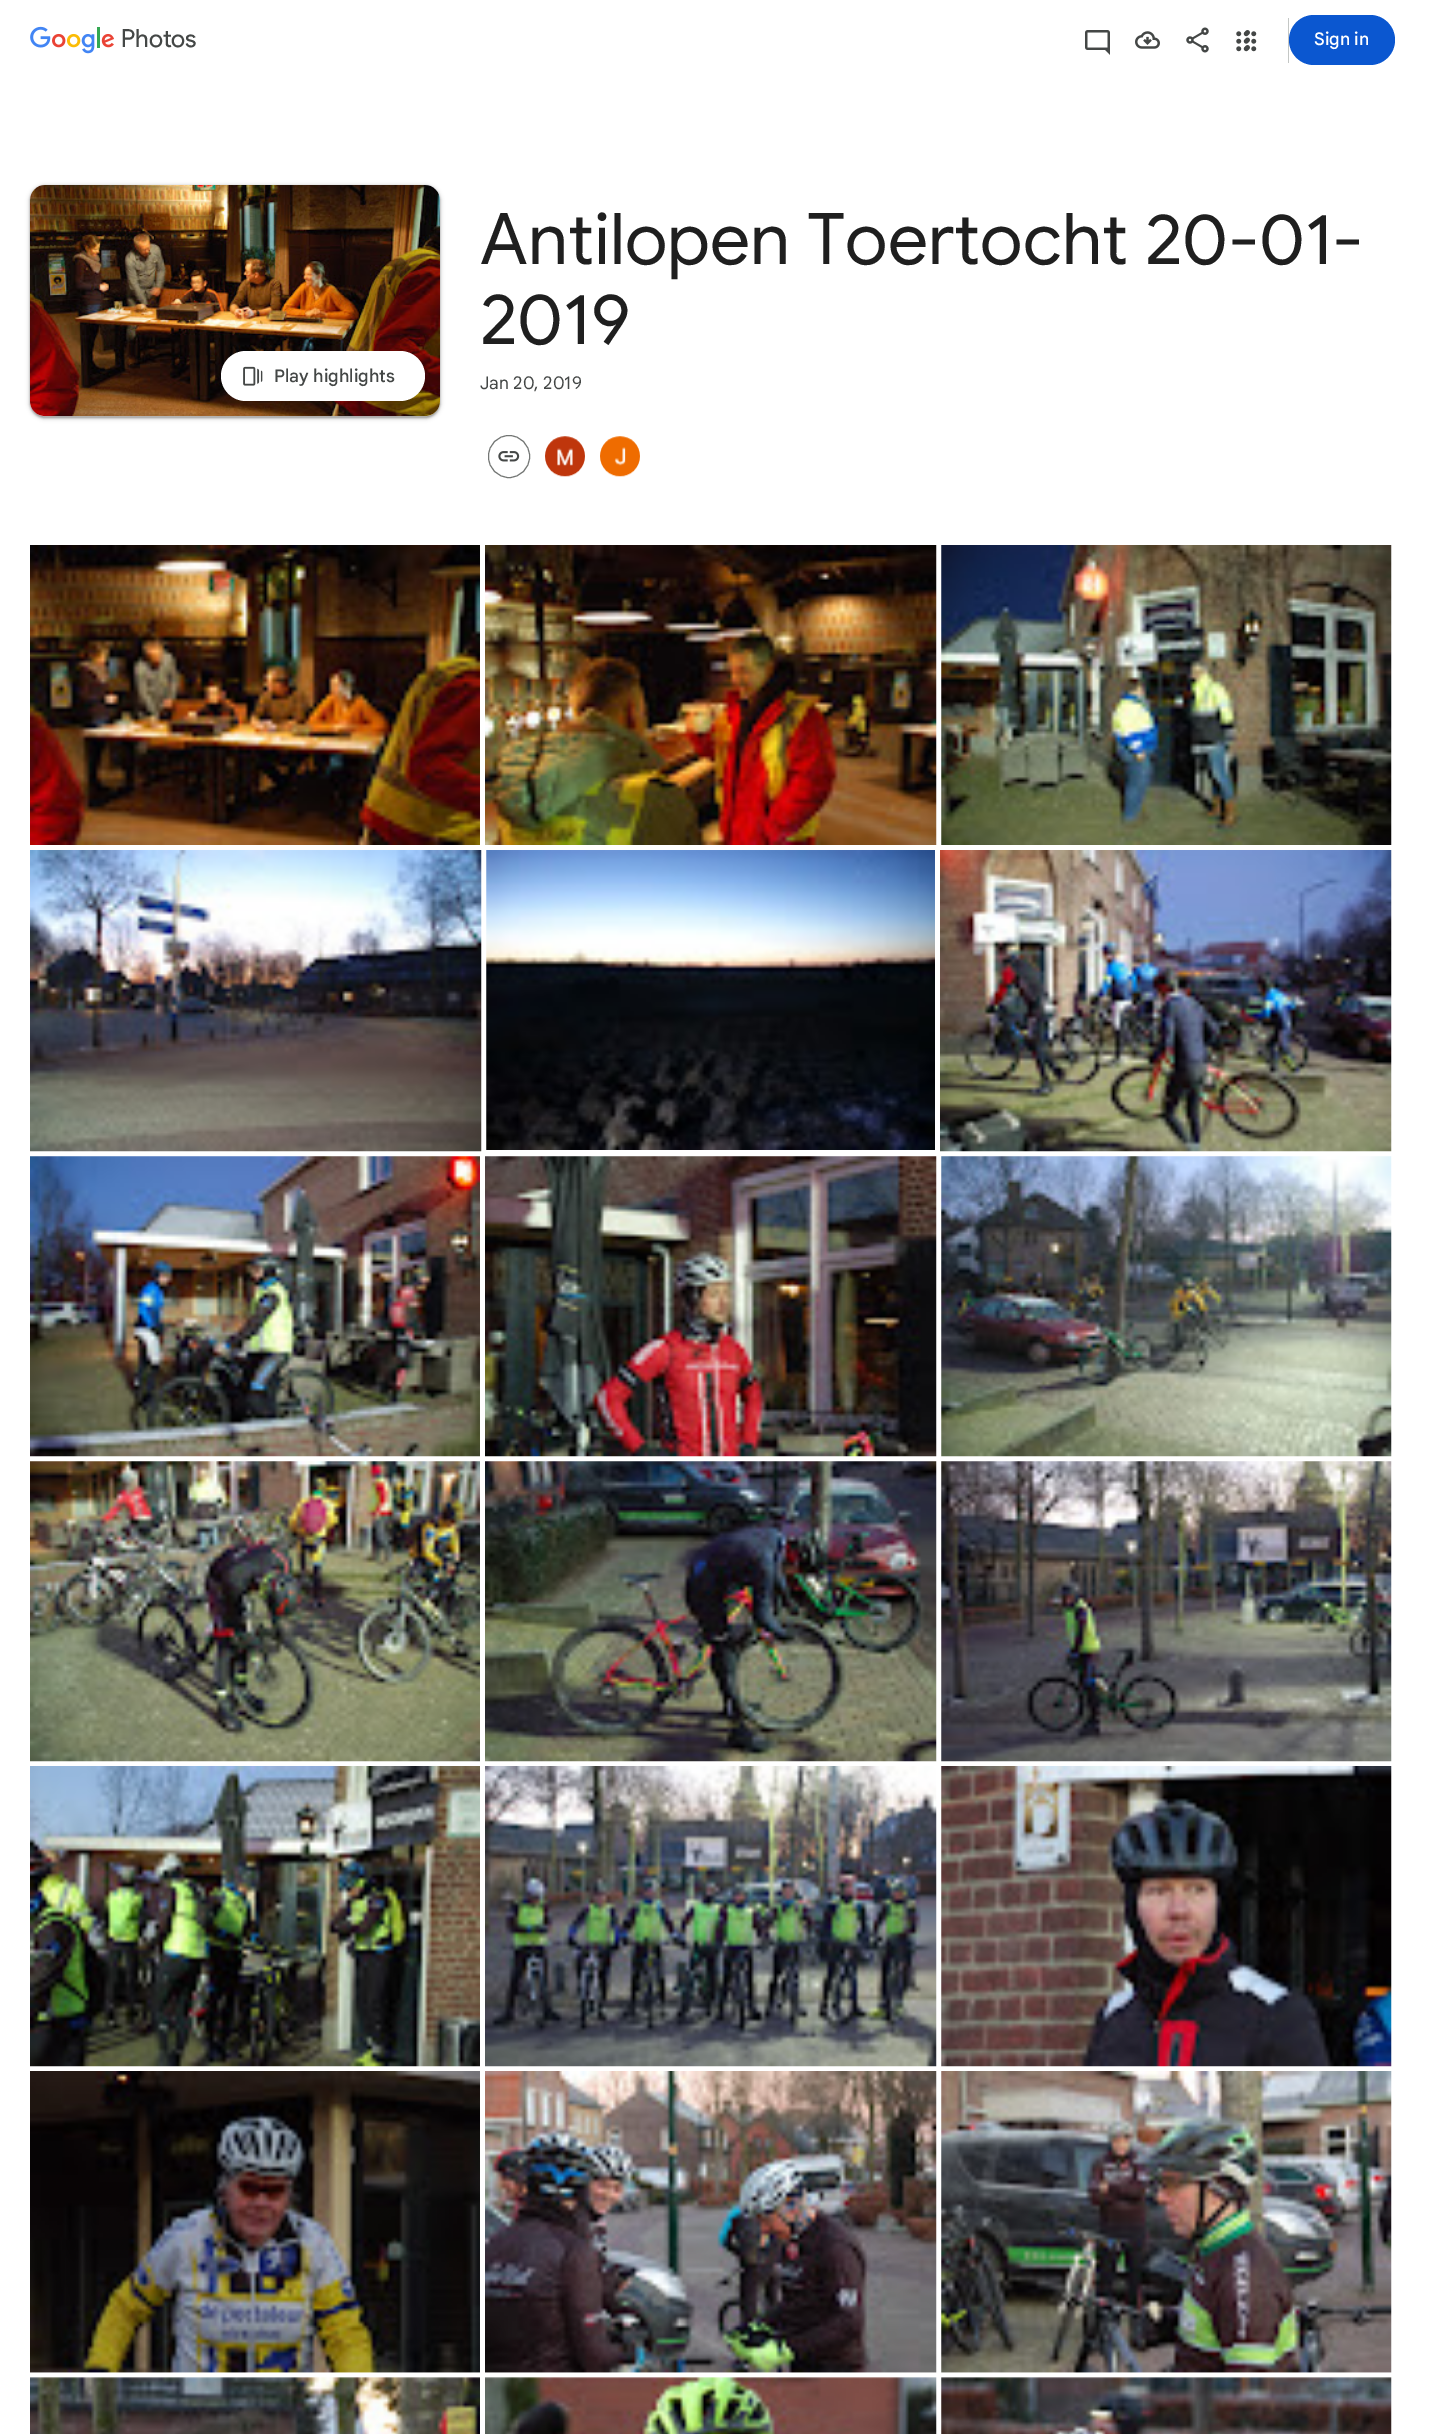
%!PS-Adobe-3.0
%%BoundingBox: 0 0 1440 2434
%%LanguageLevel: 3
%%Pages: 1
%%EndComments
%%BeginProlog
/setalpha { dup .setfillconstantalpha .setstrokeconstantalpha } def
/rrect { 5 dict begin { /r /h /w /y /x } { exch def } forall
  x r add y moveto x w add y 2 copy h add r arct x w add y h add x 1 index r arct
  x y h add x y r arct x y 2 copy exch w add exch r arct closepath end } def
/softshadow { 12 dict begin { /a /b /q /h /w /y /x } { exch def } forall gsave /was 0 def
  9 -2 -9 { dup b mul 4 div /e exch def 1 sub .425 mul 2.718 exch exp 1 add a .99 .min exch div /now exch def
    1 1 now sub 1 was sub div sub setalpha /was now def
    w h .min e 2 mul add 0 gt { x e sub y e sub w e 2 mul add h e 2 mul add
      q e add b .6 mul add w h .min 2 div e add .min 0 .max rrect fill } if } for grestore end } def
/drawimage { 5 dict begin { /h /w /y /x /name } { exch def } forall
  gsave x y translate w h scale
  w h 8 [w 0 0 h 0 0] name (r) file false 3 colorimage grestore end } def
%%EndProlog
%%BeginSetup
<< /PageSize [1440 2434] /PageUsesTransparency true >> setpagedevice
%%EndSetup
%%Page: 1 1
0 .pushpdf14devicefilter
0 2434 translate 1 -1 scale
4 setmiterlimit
1 setgray
0 0 1440 2434 rectfill
(images/1.raw) 30 26 84 28 drawimage
(images/2.raw) 1085 30 25 25 drawimage
(images/3.raw) 1135 31 25 18 drawimage
(images/4.raw) 1186 27 23 26 drawimage
(images/5.raw) 1245 30 5 20 drawimage
0.769 0.78 0.773 setrgbcolor
1288 18 1 45 rectfill
0 setgray
29 185 412 234 16 2 0.15 softshadow
30 186 410 232 15 1 0.3 softshadow
(images/6.raw) 30 185 410 232 drawimage
1 setgray
221 351 204 50 25 rrect fill
(images/7.raw) 243 366 20 20 drawimage
0.455 0.467 0.459 setrgbcolor
488.5 435.5 41 42 20.5 rrect stroke
(images/8.raw) 498 451 22 11 drawimage
(images/9.raw) 545 436 40 41 drawimage
(images/10.raw) 600 436 40 41 drawimage
(images/11.raw) 30 545 450 300 drawimage
(images/12.raw) 485 545 452 300 drawimage
(images/13.raw) 941 545 451 300 drawimage
(images/14.raw) 30 850 452 302 drawimage
(images/15.raw) 486 850 449 300 drawimage
(images/16.raw) 940 850 452 302 drawimage
(images/17.raw) 30 1156 450 301 drawimage
(images/18.raw) 485 1156 452 301 drawimage
(images/19.raw) 941 1156 451 301 drawimage
(images/20.raw) 30 1461 450 301 drawimage
(images/21.raw) 485 1461 452 301 drawimage
(images/22.raw) 941 1461 451 301 drawimage
(images/23.raw) 30 1766 450 301 drawimage
(images/24.raw) 485 1766 452 301 drawimage
(images/25.raw) 941 1766 451 301 drawimage
(images/26.raw) 30 2071 450 302 drawimage
(images/27.raw) 485 2071 452 302 drawimage
(images/28.raw) 941 2071 451 302 drawimage
(images/29.raw) 30 2377 450 57 drawimage
(images/30.raw) 485 2377 452 57 drawimage
(images/31.raw) 941 2377 451 57 drawimage
(images/32.raw) 1236 31 21 21 drawimage
0.043 0.341 0.816 setrgbcolor
1289 15 106 50 25 rrect fill
/ProductSans-Regular [25 0 0 -25 0 0] selectfont
0.267 0.278 0.275 setrgbcolor
121 47 moveto (Photos) show
/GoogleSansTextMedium-Medium [17.5 0 0 -17.5 0 0] selectfont
274 382 moveto (Play highlights) show
/GoogleSans-Regular [71.25 0 0 -71.25 0 0] selectfont
0.122 setgray
480 264 moveto (Antilopen Toertocht 20-01-) show
480 344 moveto (2019) show
/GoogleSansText-Regular [17.5 0 0 -17.5 0 0] selectfont
0.267 0.278 0.275 setrgbcolor
480 389 moveto (Jan 20, 2019) show
/GoogleSansTextMedium-Medium [17.5 0 0 -17.5 0 0] selectfont
1 setgray
1314 45 moveto (Sign in) show
.poppdf14devicefilter showpage
%%EOF
